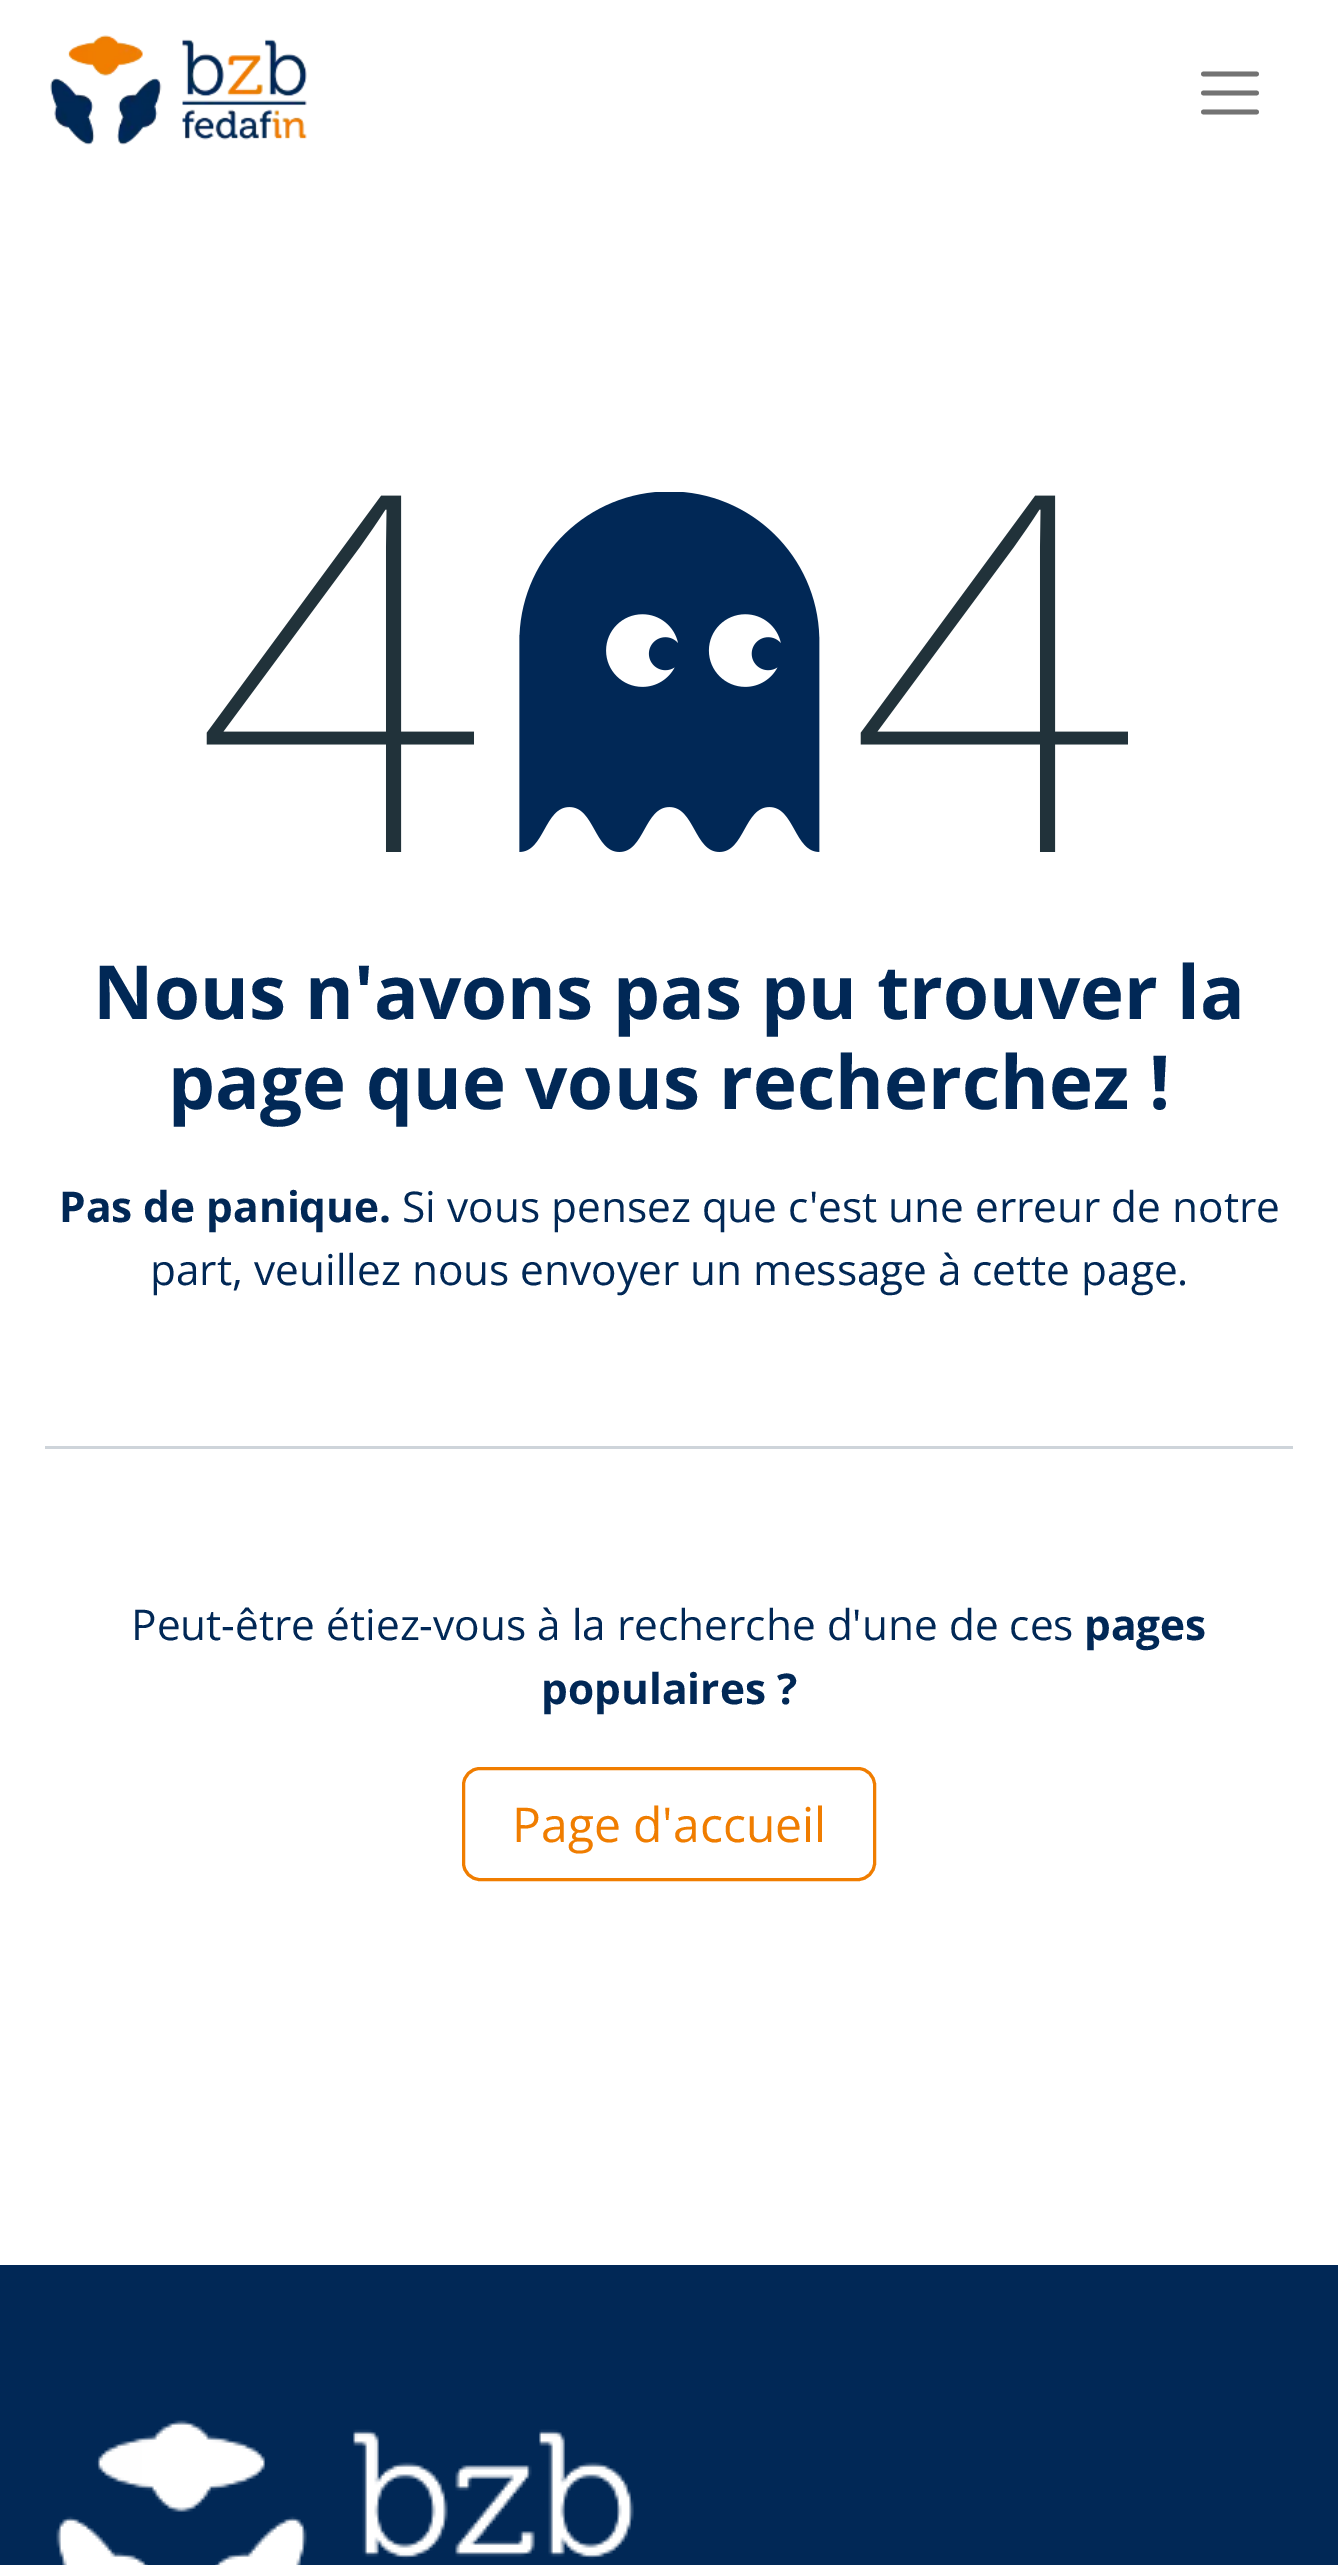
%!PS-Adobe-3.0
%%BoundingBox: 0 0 1338 2565
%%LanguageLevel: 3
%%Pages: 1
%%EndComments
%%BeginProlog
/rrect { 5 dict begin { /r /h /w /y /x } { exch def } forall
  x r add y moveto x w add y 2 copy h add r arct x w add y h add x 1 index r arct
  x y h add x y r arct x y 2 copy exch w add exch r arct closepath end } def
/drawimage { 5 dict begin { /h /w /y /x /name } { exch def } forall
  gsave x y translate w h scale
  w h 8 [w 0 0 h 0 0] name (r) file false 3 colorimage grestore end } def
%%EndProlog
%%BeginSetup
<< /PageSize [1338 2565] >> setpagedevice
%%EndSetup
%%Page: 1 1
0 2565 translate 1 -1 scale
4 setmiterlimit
1 setgray
0 0 1338 2565 rectfill
(images/1.raw) 50 35 257 110 drawimage
0.451 setgray
4.8 setlinewidth
1 setlinecap
newpath 1203.5 74 moveto 1256.5 74 lineto 1203.5 93 moveto 1256.5 93 lineto 1203.5 112 moveto 1256.5 112 lineto stroke
(images/2.raw) 206 492 922 360 drawimage
0.808 0.831 0.855 setrgbcolor
45 1446 1248 3 rectfill
0.941 0.49 0 setrgbcolor
3 setlinewidth
0 setlinecap
463.5 1768.5 411 111 16.5 rrect stroke
0.004 0.157 0.337 setrgbcolor
0 2265 1338 300 rectfill
(images/3.raw) 56 2420 578 145 drawimage
/OpenSans-Bold [74.5 0 0 -74.5 0 0] selectfont
93 1019 moveto (Nous n'avons pas pu trouver la) show
168 1109 moveto (page que vous recherchez !) show
/OpenSans-Bold [42.4 0 0 -42.4 0 0] selectfont
59 1222 moveto (Pas de panique.) show
/OpenSans-Regular [42.4 0 0 -42.4 0 0] selectfont
402 1222 moveto (Si vous pensez que c'est une erreur de notre) show
150 1285 moveto (part, veuillez nous envoyer un message à) show
972 1285 moveto (cette page.) show
131 1640 moveto (Peut-être étiez-vous à la recherche d'une de ces) show
/OpenSans-Bold [42.4 0 0 -42.4 0 0] selectfont
1084 1640 moveto (pages) show
541 1704 moveto (populaires ?) show
/OpenSans-Regular [48 0 0 -48 0 0] selectfont
0.941 0.49 0 setrgbcolor
512 1842 moveto (Page d'accueil) show
showpage
%%EOF
